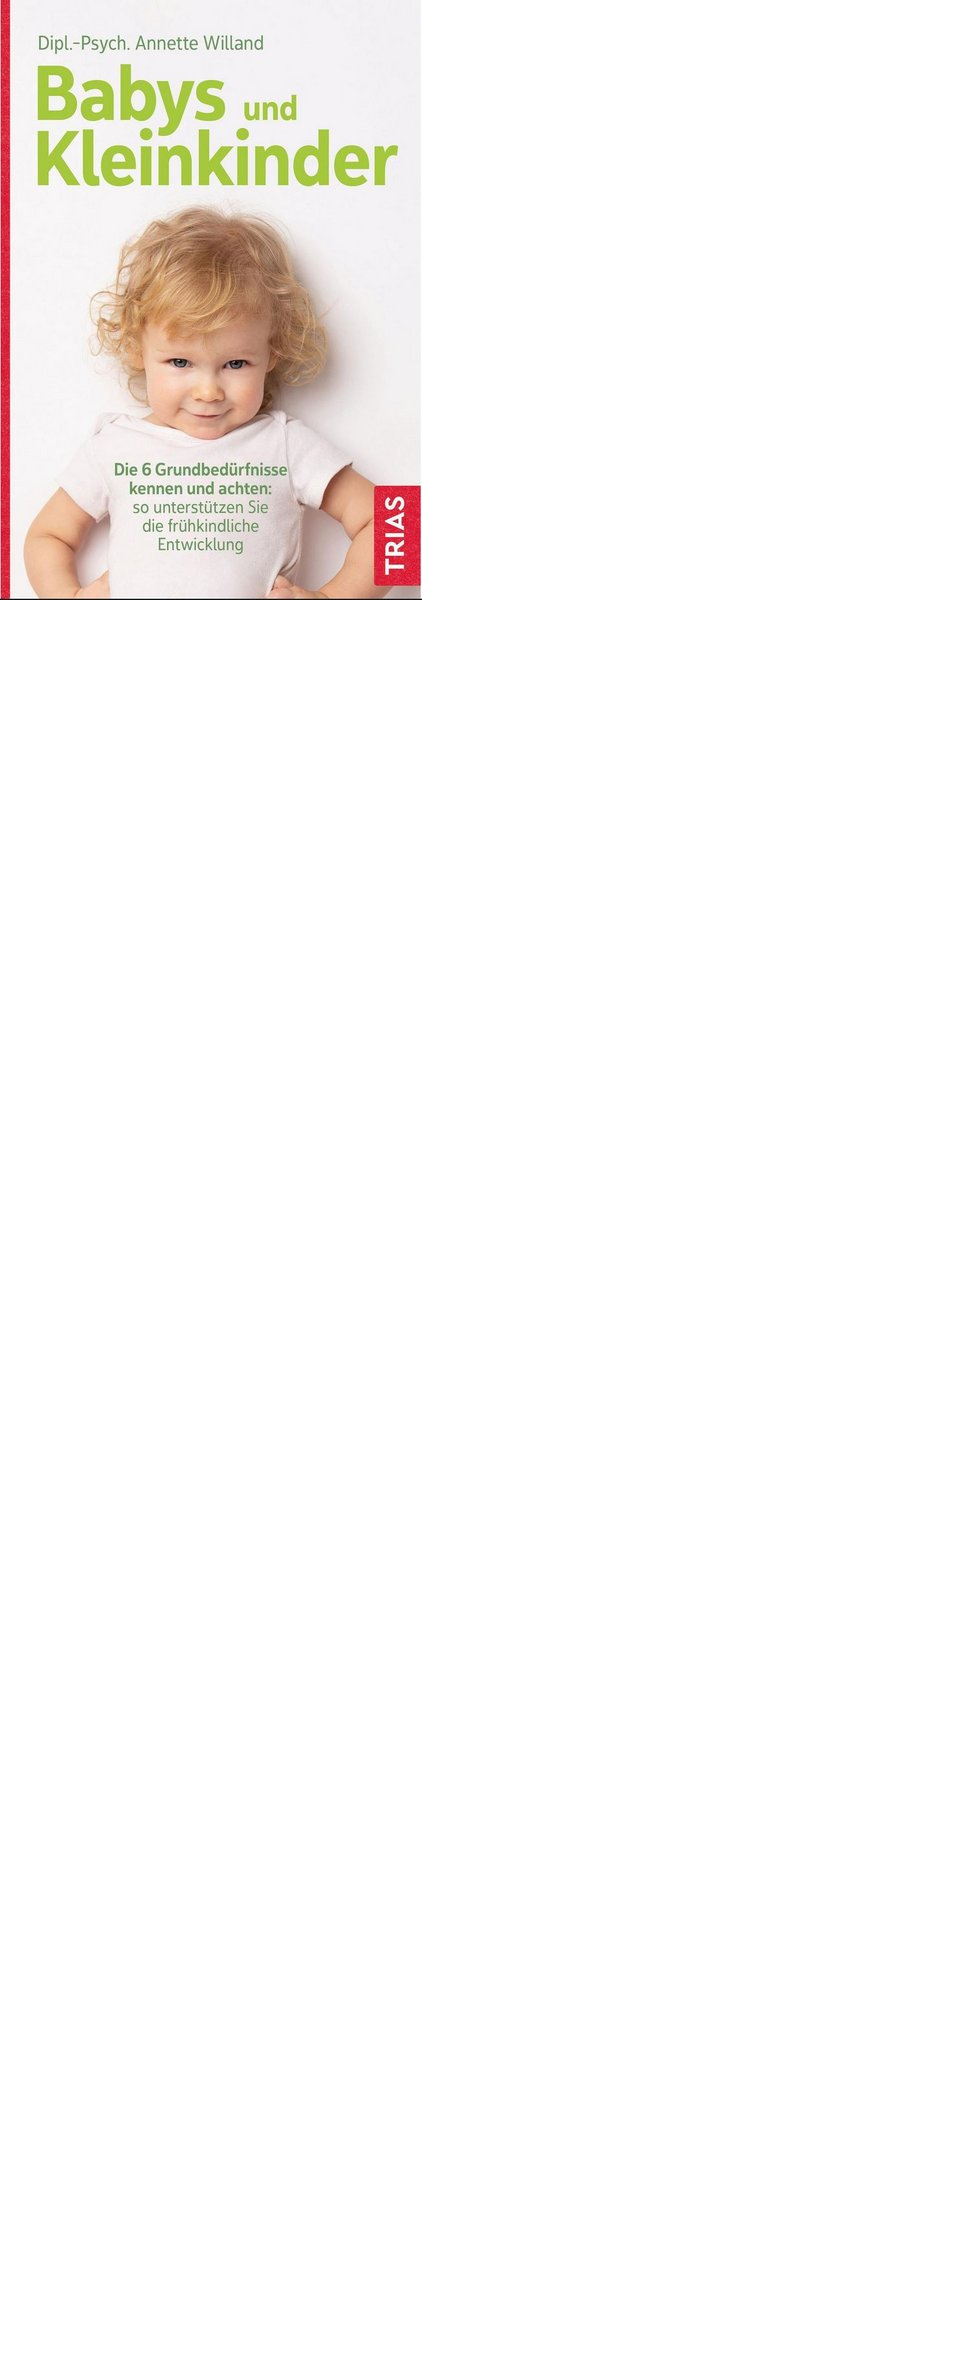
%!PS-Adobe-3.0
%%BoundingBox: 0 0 967 2377
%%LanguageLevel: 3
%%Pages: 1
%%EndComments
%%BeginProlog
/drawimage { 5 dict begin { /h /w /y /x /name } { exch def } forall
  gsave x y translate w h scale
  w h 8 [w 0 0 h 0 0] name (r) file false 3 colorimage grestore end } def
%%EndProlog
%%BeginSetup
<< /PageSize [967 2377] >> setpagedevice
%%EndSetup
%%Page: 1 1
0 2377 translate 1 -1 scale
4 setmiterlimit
1 setgray
0 0 967 2377 rectfill
(images/1.raw) 0 0 422 600 drawimage
showpage
%%EOF
